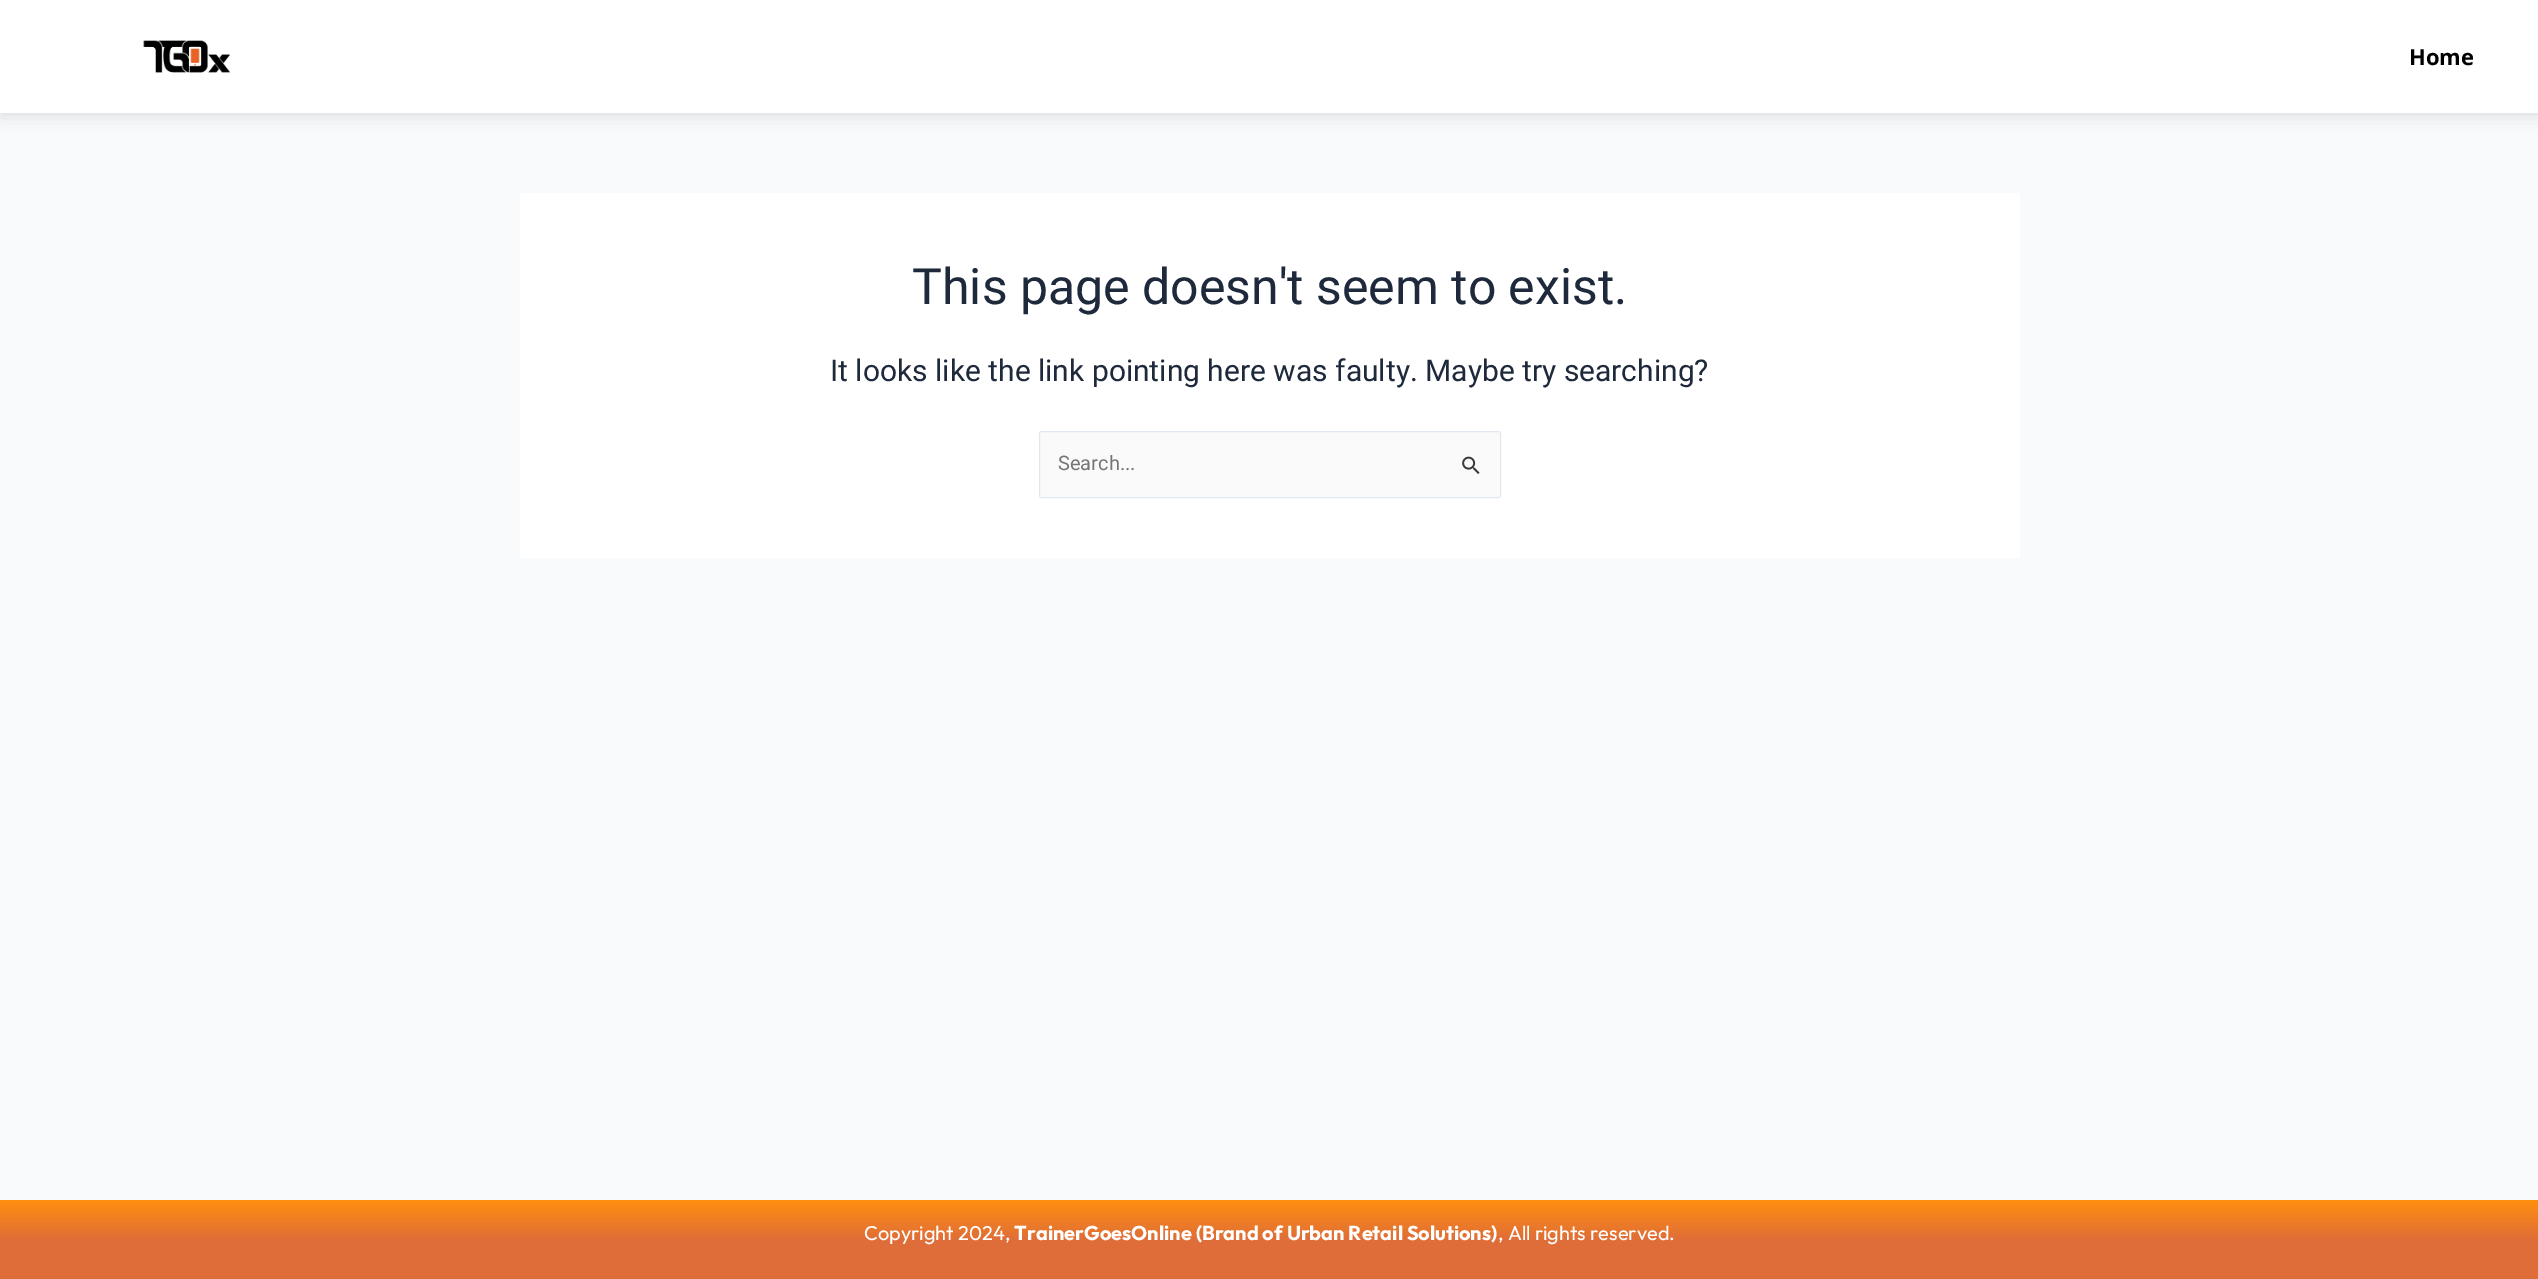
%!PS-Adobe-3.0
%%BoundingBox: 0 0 2538 1279
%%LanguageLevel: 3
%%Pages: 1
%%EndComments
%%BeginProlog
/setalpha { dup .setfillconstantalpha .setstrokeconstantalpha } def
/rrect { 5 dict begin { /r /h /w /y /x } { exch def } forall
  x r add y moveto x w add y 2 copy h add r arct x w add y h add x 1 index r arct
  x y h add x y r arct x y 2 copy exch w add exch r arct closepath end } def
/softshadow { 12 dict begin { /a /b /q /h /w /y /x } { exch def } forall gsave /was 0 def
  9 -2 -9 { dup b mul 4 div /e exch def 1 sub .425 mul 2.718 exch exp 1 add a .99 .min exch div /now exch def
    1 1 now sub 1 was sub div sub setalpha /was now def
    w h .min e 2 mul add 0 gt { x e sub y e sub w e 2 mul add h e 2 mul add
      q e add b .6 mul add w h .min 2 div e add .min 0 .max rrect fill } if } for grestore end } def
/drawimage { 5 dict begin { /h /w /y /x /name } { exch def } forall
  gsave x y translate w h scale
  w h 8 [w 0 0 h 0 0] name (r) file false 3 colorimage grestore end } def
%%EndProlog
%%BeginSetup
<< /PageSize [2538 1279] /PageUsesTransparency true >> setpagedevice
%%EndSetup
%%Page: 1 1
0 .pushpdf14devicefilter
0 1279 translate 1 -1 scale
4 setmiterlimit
0.976 0.98 0.984 setrgbcolor
0 0 2538 1279 rectfill
0 setgray
0 0 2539 113 0 9.5 0.15 softshadow
1 setgray
0 0 2538 113 rectfill
(images/1.raw) 143 40 88 33 drawimage
520 193 1500 365 rectfill
0.98 setgray
1039.5 431.5 461 66 2 rrect gsave fill grestore
0.886 0.91 0.941 setrgbcolor
stroke
(images/2.raw) 1462 456 18 18 drawimage
gsave newpath 0 1200 moveto 2538 1200 lineto 2538 1279 lineto 0 1279 lineto closepath clip newpath
<< /ShadingType 2 /ColorSpace /DeviceRGB /Coords [1269 1200 1269 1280] /Extend [true true] /Function << /FunctionType 3 /Domain [0 1] /Functions [<< /FunctionType 2 /Domain [0 1] /C0 [1 0.561 0.059] /C1 [0.875 0.427 0.224] /N 1 >> << /FunctionType 2 /Domain [0 1] /C0 [0.875 0.427 0.224] /C1 [0.875 0.427 0.224] /N 1 >>] /Bounds [0.51] /Encode [0 1 0 1] >> >> shfill grestore
/OpenSans-Bold [22 0 0 -22 0 0] selectfont
0 setgray
2409 65 moveto (Home) show
/Roboto-Regular [50 0 0 -50 0 0] selectfont
0.118 0.161 0.231 setrgbcolor
912 304 moveto (This page doesn't seem to exist.) show
/Roboto-Regular [30 0 0 -30 0 0] selectfont
830 381 moveto (It looks like the link pointing here was faulty. Maybe try searching?) show
/Roboto-Regular [20 0 0 -20 0 0] selectfont
0.459 setgray
1058 470 moveto (Search...) show
/Outfit-Regular [20 0 0 -20 0 0] selectfont
1 setgray
864 1240 moveto (Copyright 2024,) show
/Outfit-Bold [20 0 0 -20 0 0] selectfont
1014 1240 moveto (TrainerGoesOnline \(Brand of Urban Retail Solutions\)) show
/Outfit-Regular [20 0 0 -20 0 0] selectfont
1498 1240 moveto (, All rights reserved.) show
.poppdf14devicefilter showpage
%%EOF
